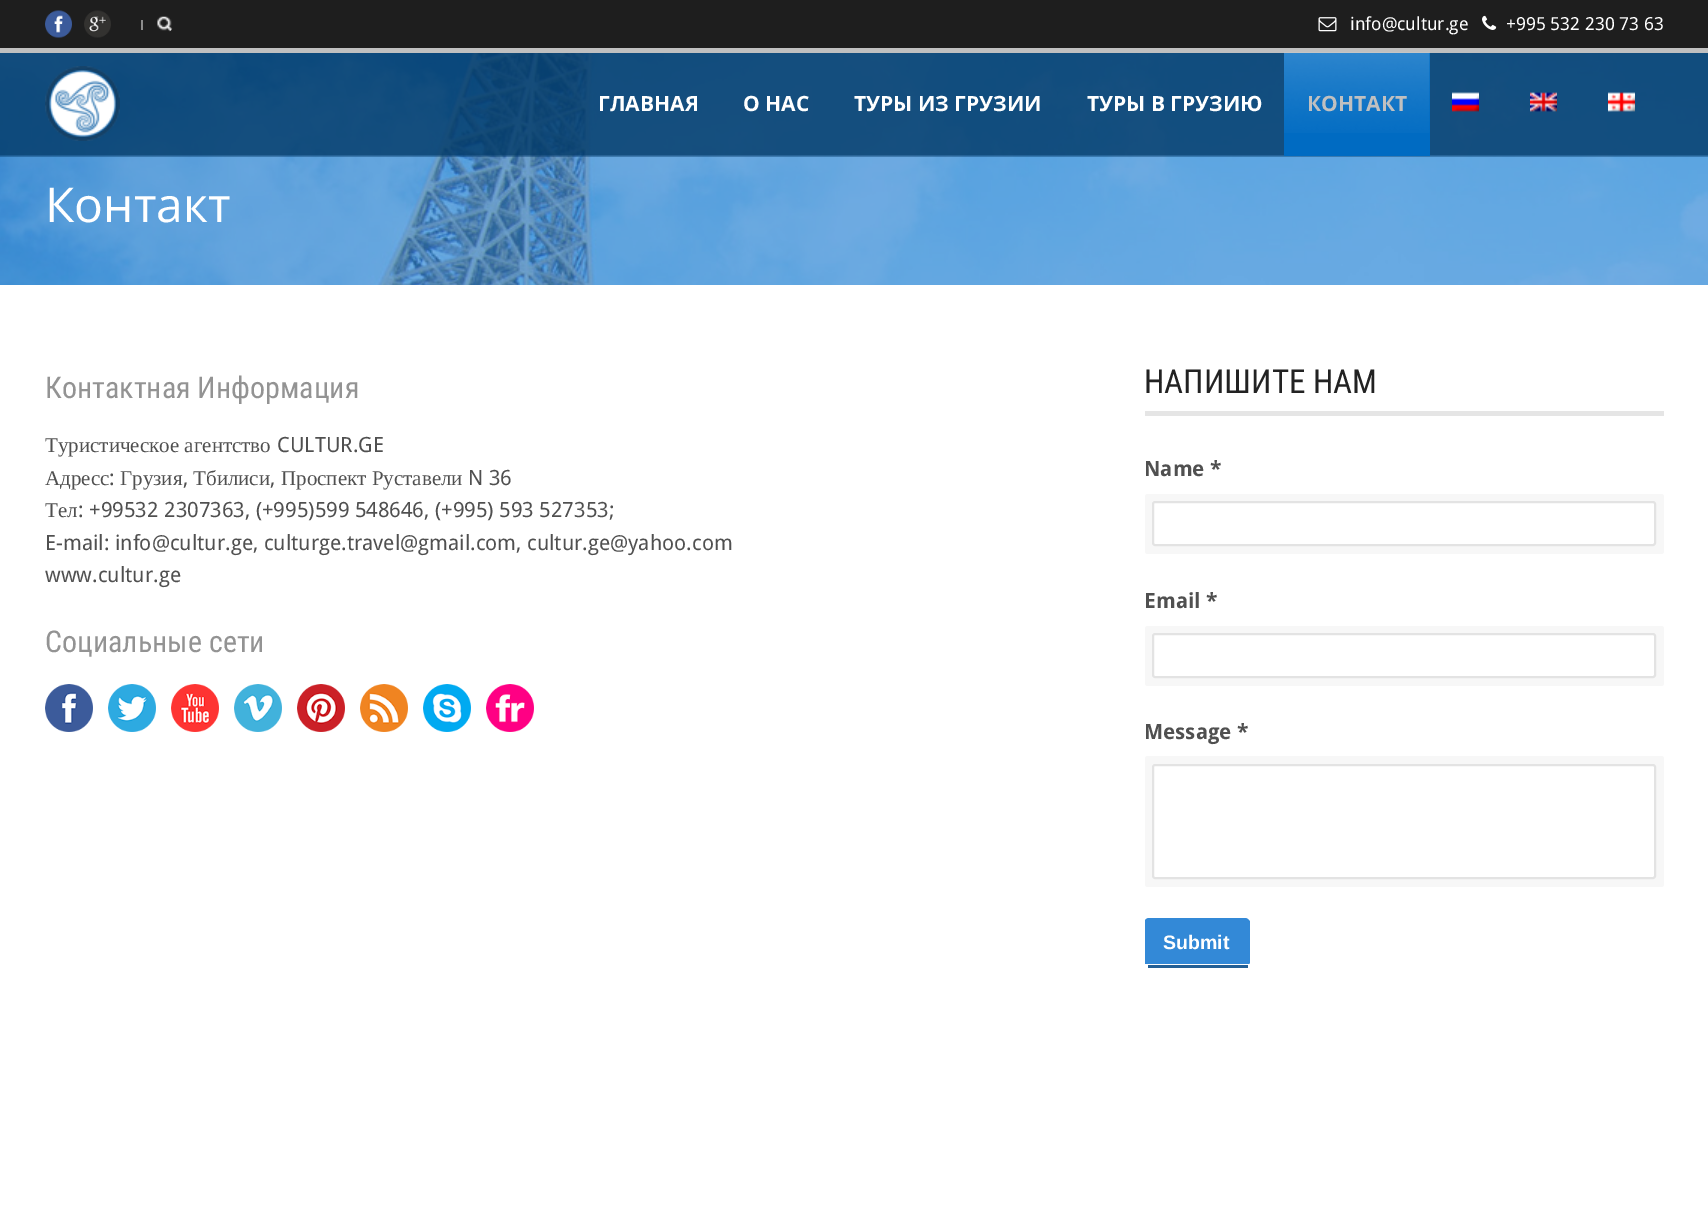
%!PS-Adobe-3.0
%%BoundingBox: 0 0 1708 1231
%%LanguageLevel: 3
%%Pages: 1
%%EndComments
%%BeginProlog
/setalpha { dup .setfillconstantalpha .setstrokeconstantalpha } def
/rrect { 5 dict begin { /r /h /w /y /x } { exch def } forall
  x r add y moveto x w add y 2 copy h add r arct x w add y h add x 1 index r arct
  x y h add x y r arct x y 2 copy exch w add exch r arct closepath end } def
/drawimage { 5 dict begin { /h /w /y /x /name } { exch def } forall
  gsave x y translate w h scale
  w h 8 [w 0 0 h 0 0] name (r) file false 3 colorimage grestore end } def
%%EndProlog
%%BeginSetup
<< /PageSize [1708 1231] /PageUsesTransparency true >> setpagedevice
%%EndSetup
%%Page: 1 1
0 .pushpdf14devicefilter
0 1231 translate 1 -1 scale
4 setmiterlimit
1 setgray
0 0 1708 1231 rectfill
(images/1.raw) 0 53 1708 232 drawimage
0.118 setgray
0 0 1708 48 rectfill
0.753 setgray
0 48 1708 5 rectfill
(images/2.raw) 45 10 27 28 drawimage
(images/3.raw) 84 10 27 28 drawimage
(images/4.raw) 157 16 16 16 drawimage
0.549 setgray
141 20 2 10 rectfill
(images/5.raw) 1318 17 19 15 drawimage
(images/6.raw) 1482 15 15 15 drawimage
0.7 setalpha
0.2 0.537 0.843 setrgbcolor
0 53 1708 232 rectfill
1 setalpha
(images/7.raw) 0 53 1708 104 drawimage
(images/8.raw) 45 66 75 75 drawimage
0 0.42 0.761 setrgbcolor
1284 53 146 103 rectfill
(images/9.raw) 1284 52 146 81 drawimage
(images/10.raw) 1452 92 27 20 drawimage
(images/11.raw) 1530 92 27 20 drawimage
(images/12.raw) 1608 92 27 20 drawimage
(images/13.raw) 45 684 48 48 drawimage
(images/14.raw) 108 684 48 48 drawimage
(images/15.raw) 171 684 48 48 drawimage
(images/16.raw) 234 684 48 48 drawimage
(images/17.raw) 297 684 48 48 drawimage
(images/18.raw) 360 684 48 48 drawimage
(images/19.raw) 423 684 48 48 drawimage
(images/20.raw) 486 684 48 48 drawimage
0.898 setgray
1145 411 519 5 rectfill
0.969 setgray
newpath 1148 509 moveto 1146 509 1145 510 1145 512 curveto 1145 551 lineto 1145 553 1146 554 1148 554 curveto 1646 554 lineto 1648 554 1649 553 1649 551 curveto 1649 546 lineto 1155 546 lineto 1153 546 1152 545 1152 543 curveto 1152 509 lineto closepath fill
newpath 1163 494 moveto 1159 494 1160 499 1160 501 curveto 1653 501 lineto 1655 501 1656 502 1656 504 curveto 1656 539 lineto 1661 539 lineto 1663 539 1664 538 1664 536 curveto 1664 497 lineto 1664 495 1663 494 1661 494 curveto closepath fill
newpath 1152 543 moveto 1152 551 lineto 1152 553 1153 554 1155 554 curveto 1653 554 lineto 1655 554 1656 553 1656 551 curveto 1656 543 lineto 1656 545 1655 546 1653 546 curveto 1155 546 lineto 1153 546 1152 545 1152 543 curveto closepath fill
newpath 1653 546 moveto 1664 546 1664 548 1664 536 curveto 1664 510 lineto 1664 499 1664 501 1653 501 curveto 1655 501 1656 502 1656 504 curveto 1656 543 lineto 1656 545 1655 546 1653 546 curveto closepath fill
newpath 1160 546 moveto 1160 551 lineto 1160 553 1161 554 1163 554 curveto 1661 554 lineto 1663 554 1664 553 1664 551 curveto 1664 512 lineto 1664 510 1663 509 1661 509 curveto 1656 509 lineto 1656 543 lineto 1656 545 1655 546 1653 546 curveto closepath fill
newpath 1148 494 moveto 1146 494 1145 495 1145 497 curveto 1145 536 lineto 1145 538 1146 539 1148 539 curveto 1152 539 lineto 1152 504 lineto 1152 502 1153 501 1155 501 curveto 1649 501 lineto 1649 499 1650 494 1646 494 curveto closepath fill
1 setgray
1153 502 502 43 2 rrect gsave fill grestore
0.89 setgray
2 setlinewidth
stroke
0.969 setgray
newpath 1148 641 moveto 1146 641 1145 642 1145 644 curveto 1145 683 lineto 1145 685 1146 686 1148 686 curveto 1646 686 lineto 1648 686 1649 685 1649 683 curveto 1649 678 lineto 1155 678 lineto 1153 678 1152 677 1152 675 curveto 1152 641 lineto closepath fill
newpath 1163 626 moveto 1159 626 1160 631 1160 633 curveto 1653 633 lineto 1655 633 1656 634 1656 636 curveto 1656 671 lineto 1661 671 lineto 1663 671 1664 670 1664 668 curveto 1664 629 lineto 1664 627 1663 626 1661 626 curveto closepath fill
newpath 1152 675 moveto 1152 683 lineto 1152 685 1153 686 1155 686 curveto 1653 686 lineto 1655 686 1656 685 1656 683 curveto 1656 675 lineto 1656 677 1655 678 1653 678 curveto 1155 678 lineto 1153 678 1152 677 1152 675 curveto closepath fill
newpath 1653 678 moveto 1664 678 1664 680 1664 668 curveto 1664 642 lineto 1664 631 1664 633 1653 633 curveto 1655 633 1656 634 1656 636 curveto 1656 675 lineto 1656 677 1655 678 1653 678 curveto closepath fill
newpath 1160 678 moveto 1160 683 lineto 1160 685 1161 686 1163 686 curveto 1661 686 lineto 1663 686 1664 685 1664 683 curveto 1664 644 lineto 1664 642 1663 641 1661 641 curveto 1656 641 lineto 1656 675 lineto 1656 677 1655 678 1653 678 curveto closepath fill
newpath 1148 626 moveto 1146 626 1145 627 1145 629 curveto 1145 668 lineto 1145 670 1146 671 1148 671 curveto 1152 671 lineto 1152 636 lineto 1152 634 1153 633 1155 633 curveto 1649 633 lineto 1649 631 1650 626 1646 626 curveto closepath fill
1 setgray
1153 634 502 43 2 rrect gsave fill grestore
0.89 setgray
stroke
0.969 setgray
newpath 1148 771 moveto 1146 771 1145 772 1145 774 curveto 1145 884 lineto 1145 886 1146 887 1148 887 curveto 1646 887 lineto 1648 887 1649 886 1649 884 curveto 1649 879 lineto 1155 879 lineto 1153 879 1152 878 1152 876 curveto 1152 771 lineto closepath fill
newpath 1163 756 moveto 1159 756 1160 761 1160 764 curveto 1653 764 lineto 1655 764 1656 765 1656 766 curveto 1656 872 lineto 1661 872 lineto 1663 872 1664 871 1664 869 curveto 1664 759 lineto 1664 757 1663 756 1661 756 curveto closepath fill
newpath 1152 876 moveto 1152 884 lineto 1152 886 1153 887 1155 887 curveto 1653 887 lineto 1655 887 1656 886 1656 884 curveto 1656 876 lineto 1656 878 1655 879 1653 879 curveto 1155 879 lineto 1153 879 1152 878 1152 876 curveto closepath fill
newpath 1653 879 moveto 1661 879 lineto 1663 879 1664 878 1664 876 curveto 1664 767 lineto 1664 765 1663 764 1661 764 curveto 1655 764 lineto 1655 765 1656 765 1656 766 curveto 1656 876 lineto 1656 878 1655 879 1653 879 curveto closepath fill
newpath 1160 879 moveto 1160 884 lineto 1160 886 1161 887 1163 887 curveto 1661 887 lineto 1663 887 1664 886 1664 884 curveto 1664 774 lineto 1664 772 1663 771 1661 771 curveto 1656 771 lineto 1656 876 lineto 1656 878 1655 879 1653 879 curveto closepath fill
newpath 1148 756 moveto 1146 756 1145 757 1145 759 curveto 1145 869 lineto 1145 871 1146 872 1148 872 curveto 1152 872 lineto 1152 766 lineto 1152 765 1153 764 1155 764 curveto 1649 764 lineto 1649 761 1650 756 1646 756 curveto closepath fill
1 setgray
1153 765 502 113 2 rrect gsave fill grestore
0.89 setgray
stroke
gsave
1145 285 519 750 rectclip
0.2 0.537 0.843 setrgbcolor
newpath 1149 918 moveto 1245 918 lineto 1247 918 1250 920 1250 922 curveto 1250 963 lineto 1250 964 1247 964 1245 964 curveto 1149 964 lineto 1147 964 1144 964 1144 963 curveto 1144 922 lineto 1144 920 1147 918 1149 918 curveto closepath fill
grestore
0.141 0.376 0.588 setrgbcolor
1148 965 100 3 rectfill
/DroidSans-Regular [18 0 0 -18 0 0] selectfont
1 setgray
1350 30 moveto (info@cultur.ge) show
1506 30 moveto (+995 532 230 73 63) show
/OpenSans-Bold [21 0 0 -21 0 0] selectfont
598 111 moveto (ГЛАВНАЯ) show
743 111 moveto (О НАС) show
854 111 moveto (ТУРЫ ИЗ ГРУЗИИ) show
1087 111 moveto (ТУРЫ В ГРУЗИЮ) show
0.753 setgray
1307 111 moveto (КОНТАКТ) show
/OpenSans-Regular [48 0 0 -48 0 0] selectfont
1 setgray
45 222 moveto (Контакт) show
/RobotoCondensed-Regular [30 0 0 -30 0 0] selectfont
0.576 setgray
45 398 moveto (Контактная Информация) show
/LiberationSerif-Regular [21 0 0 -21 0 0] selectfont
0.314 setgray
45 452 moveto (Туристическое агентство) show
/DroidSans-Regular [21 0 0 -21 0 0] selectfont
277 452 moveto (CULTUR.GE) show
/LiberationSerif-Regular [21 0 0 -21 0 0] selectfont
45 485 moveto (Адресс) show
/DroidSans-Regular [21 0 0 -21 0 0] selectfont
109 485 moveto (:) show
/LiberationSerif-Regular [21 0 0 -21 0 0] selectfont
120 485 moveto (Грузия) show
/DroidSans-Regular [21 0 0 -21 0 0] selectfont
183 485 moveto (,) show
/LiberationSerif-Regular [21 0 0 -21 0 0] selectfont
193 485 moveto (Тбилиси) show
/DroidSans-Regular [21 0 0 -21 0 0] selectfont
270 485 moveto (,) show
/LiberationSerif-Regular [21 0 0 -21 0 0] selectfont
281 485 moveto (Проспект Руставели) show
/DroidSans-Regular [21 0 0 -21 0 0] selectfont
468 485 moveto (N 36) show
/LiberationSerif-Regular [21 0 0 -21 0 0] selectfont
45 517 moveto (Тел) show
/DroidSans-Regular [21 0 0 -21 0 0] selectfont
78 517 moveto (: +99532 2307363, \(+995\)599 548646, \(+995\) 593 527353;) show
45 550 moveto (E-mail: info@cultur.ge, culturge.travel@gmail.com, cultur.ge@yahoo.com) show
45 582 moveto (www.cultur.ge) show
/RobotoCondensed-Regular [30 0 0 -30 0 0] selectfont
0.576 setgray
45 652 moveto (Социальные сети) show
/RobotoCondensed-Regular [33 0 0 -33 0 0] selectfont
0.133 setgray
1144 393 moveto (НАПИШИТЕ НАМ) show
/DroidSans-Bold [21 0 0 -21 0 0] selectfont
0.314 setgray
1144 476 moveto (Name *) show
1144 608 moveto (Email *) show
1144 739 moveto (Message *) show
/LiberationSans-Bold [19.5 0 0 -19.5 0 0] selectfont
1 setgray
1163 949 moveto (Submit) show
.poppdf14devicefilter showpage
%%EOF
